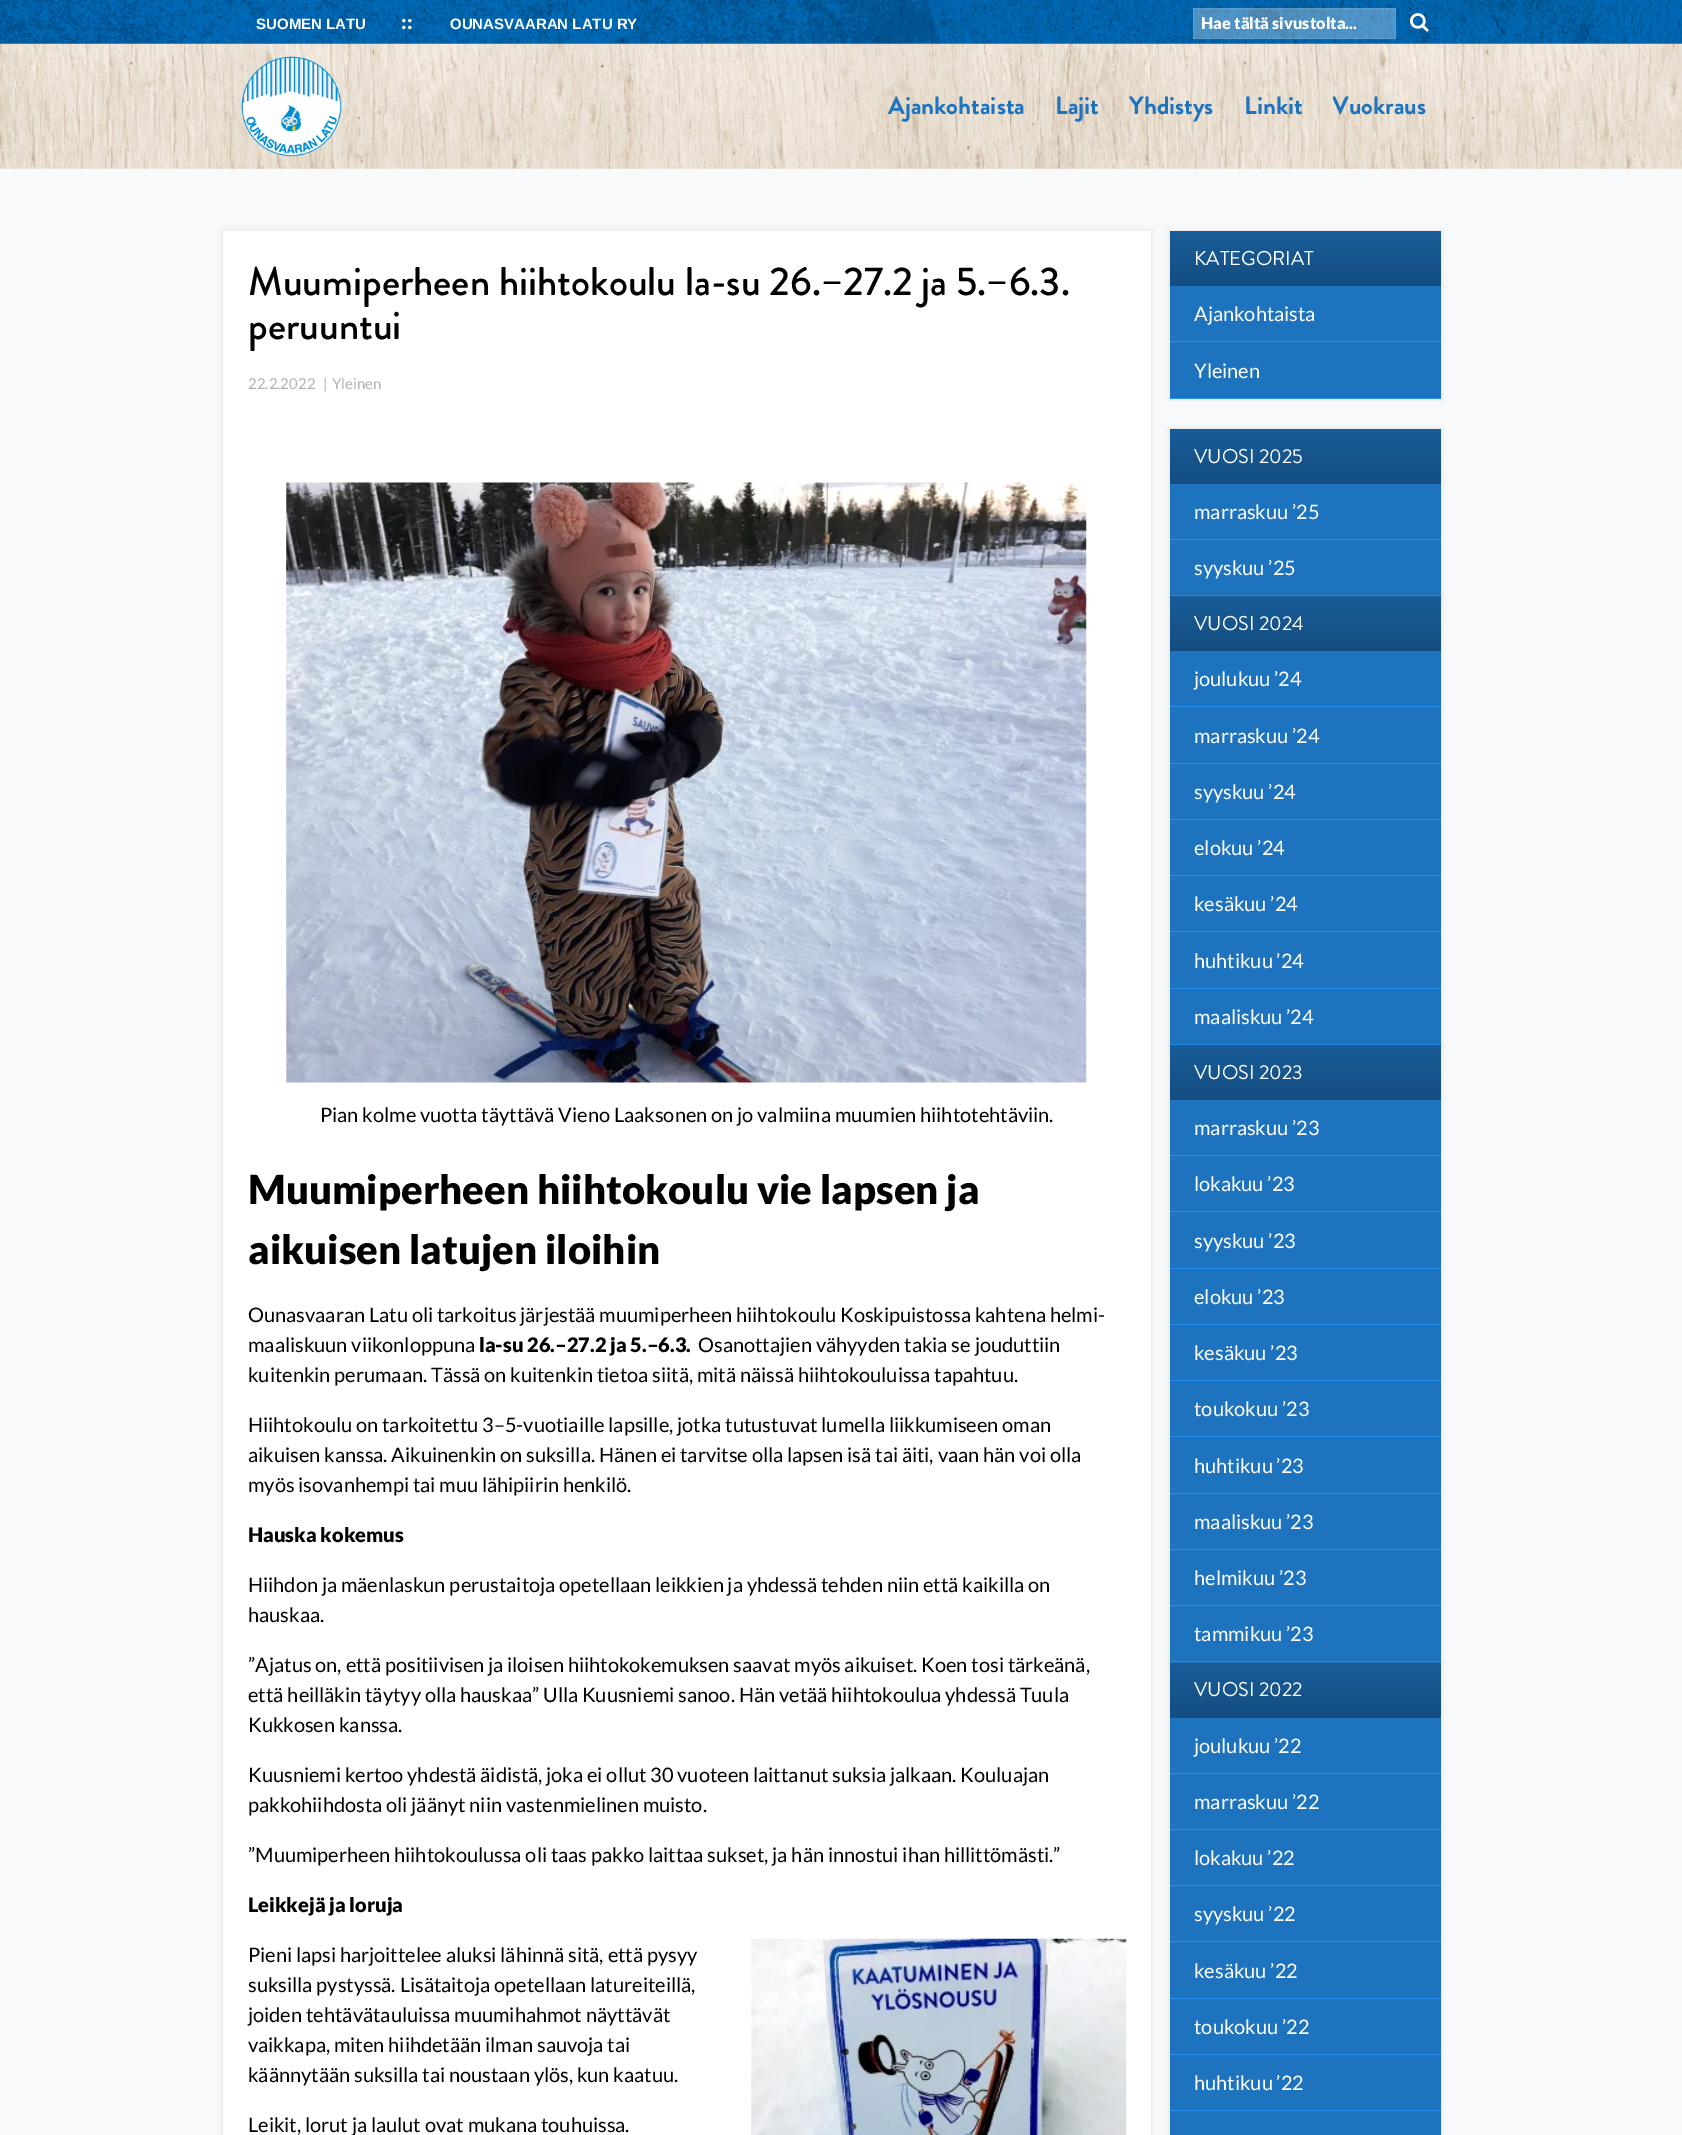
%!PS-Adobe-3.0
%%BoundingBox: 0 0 1682 2135
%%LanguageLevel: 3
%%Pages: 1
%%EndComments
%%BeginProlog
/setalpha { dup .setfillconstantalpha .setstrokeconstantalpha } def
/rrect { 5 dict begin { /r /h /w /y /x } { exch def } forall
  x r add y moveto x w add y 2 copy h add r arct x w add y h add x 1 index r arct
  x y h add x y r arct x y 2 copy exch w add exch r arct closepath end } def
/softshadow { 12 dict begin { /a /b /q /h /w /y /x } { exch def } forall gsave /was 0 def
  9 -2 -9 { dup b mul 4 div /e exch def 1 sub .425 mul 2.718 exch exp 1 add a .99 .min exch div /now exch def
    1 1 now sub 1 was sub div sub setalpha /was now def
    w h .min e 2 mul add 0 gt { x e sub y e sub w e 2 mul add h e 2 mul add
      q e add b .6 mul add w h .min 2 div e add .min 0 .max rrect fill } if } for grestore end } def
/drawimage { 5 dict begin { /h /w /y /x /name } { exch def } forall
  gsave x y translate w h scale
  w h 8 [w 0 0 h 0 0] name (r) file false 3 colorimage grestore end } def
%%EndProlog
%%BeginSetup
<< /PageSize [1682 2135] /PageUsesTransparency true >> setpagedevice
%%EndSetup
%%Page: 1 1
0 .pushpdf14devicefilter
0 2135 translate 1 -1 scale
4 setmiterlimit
0.973 0.976 0.98 setrgbcolor
0 0 1682 2135 rectfill
(images/1.raw) 0 0 1682 44 drawimage
0.3 setalpha
1 setgray
1193 8 203 31 rectfill
0.1 setalpha
1193.5 8.5 202 30 rectstroke
1 setalpha
(images/2.raw) 1410 13 19 19 drawimage
(images/3.raw) 0 43 1682 126 drawimage
(images/4.raw) 241 56 101 101 drawimage
0 setgray
223 231 928 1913 0 3 0.1 softshadow
1 setgray
223 231 928 1904 rectfill
(images/5.raw) 286 482 801 601 drawimage
(images/6.raw) 751 1938 376 197 drawimage
0 setgray
1170 231 271 55 0 3 0.1 softshadow
1170 286 271 113 0 3 0.1 softshadow
gsave newpath 1170 231 moveto 1441 231 lineto 1441 286 lineto 1170 286 lineto closepath clip newpath
<< /ShadingType 2 /ColorSpace /DeviceRGB /Coords [1306 231 1306 286] /Extend [true true] /Function << /FunctionType 3 /Domain [0 1] /Functions [<< /FunctionType 2 /Domain [0 1] /C0 [0.094 0.361 0.596] /C1 [0.094 0.361 0.596] /N 1 >> << /FunctionType 2 /Domain [0 1] /C0 [0.094 0.361 0.596] /C1 [0.078 0.306 0.506] /N 1 >>] /Bounds [0.02] /Encode [0 1 0 1] >> >> shfill grestore
0.118 0.451 0.745 setrgbcolor
1170 286 271 112 rectfill
0.145 0.561 0.929 setrgbcolor
1170 341 271 1 rectfill
1170 398 271 1 rectfill
0 setgray
1170 429 271 167 0 3 0.1 softshadow
0.118 0.451 0.745 setrgbcolor
1170 484 271 111 rectfill
gsave newpath 1170 429 moveto 1441 429 lineto 1441 484 lineto 1170 484 lineto closepath clip newpath
<< /ShadingType 2 /ColorSpace /DeviceRGB /Coords [1306 429 1306 484] /Extend [true true] /Function << /FunctionType 3 /Domain [0 1] /Functions [<< /FunctionType 2 /Domain [0 1] /C0 [0.094 0.361 0.596] /C1 [0.094 0.361 0.596] /N 1 >> << /FunctionType 2 /Domain [0 1] /C0 [0.094 0.361 0.596] /C1 [0.078 0.306 0.506] /N 1 >>] /Bounds [0.02] /Encode [0 1 0 1] >> >> shfill grestore
0.145 0.561 0.929 setrgbcolor
1170 539 271 1 rectfill
1170 595 271 1 rectfill
0 setgray
1170 596 271 449 0 3 0.1 softshadow
0.118 0.451 0.745 setrgbcolor
1170 651 271 393 rectfill
gsave newpath 1170 596 moveto 1441 596 lineto 1441 651 lineto 1170 651 lineto closepath clip newpath
<< /ShadingType 2 /ColorSpace /DeviceRGB /Coords [1306 596 1306 651] /Extend [true true] /Function << /FunctionType 3 /Domain [0 1] /Functions [<< /FunctionType 2 /Domain [0 1] /C0 [0.094 0.361 0.596] /C1 [0.094 0.361 0.596] /N 1 >> << /FunctionType 2 /Domain [0 1] /C0 [0.094 0.361 0.596] /C1 [0.078 0.306 0.506] /N 1 >>] /Bounds [0.02] /Encode [0 1 0 1] >> >> shfill grestore
0.145 0.561 0.929 setrgbcolor
1170 706 271 1 rectfill
1170 763 271 1 rectfill
1170 819 271 1 rectfill
1170 875 271 1 rectfill
1170 931 271 1 rectfill
1170 988 271 1 rectfill
1170 1044 271 1 rectfill
0 setgray
1170 1045 271 618 0 3 0.1 softshadow
0.118 0.451 0.745 setrgbcolor
1170 1100 271 563 rectfill
gsave newpath 1170 1045 moveto 1441 1045 lineto 1441 1100 lineto 1170 1100 lineto closepath clip newpath
<< /ShadingType 2 /ColorSpace /DeviceRGB /Coords [1306 1045 1306 1100] /Extend [true true] /Function << /FunctionType 3 /Domain [0 1] /Functions [<< /FunctionType 2 /Domain [0 1] /C0 [0.094 0.361 0.596] /C1 [0.094 0.361 0.596] /N 1 >> << /FunctionType 2 /Domain [0 1] /C0 [0.094 0.361 0.596] /C1 [0.078 0.306 0.506] /N 1 >>] /Bounds [0.02] /Encode [0 1 0 1] >> >> shfill grestore
0.145 0.561 0.929 setrgbcolor
1170 1155 271 1 rectfill
1170 1211 271 1 rectfill
1170 1268 271 1 rectfill
1170 1324 271 1 rectfill
1170 1380 271 1 rectfill
1170 1436 271 1 rectfill
1170 1493 271 1 rectfill
1170 1549 271 1 rectfill
1170 1605 271 1 rectfill
1170 1661 271 1 rectfill
0 setgray
1170 1663 271 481 0 3 0.1 softshadow
0.118 0.451 0.745 setrgbcolor
1170 1718 271 417 rectfill
gsave newpath 1170 1663 moveto 1441 1663 lineto 1441 1718 lineto 1170 1718 lineto closepath clip newpath
<< /ShadingType 2 /ColorSpace /DeviceRGB /Coords [1306 1663 1306 1718] /Extend [true true] /Function << /FunctionType 3 /Domain [0 1] /Functions [<< /FunctionType 2 /Domain [0 1] /C0 [0.094 0.361 0.596] /C1 [0.094 0.361 0.596] /N 1 >> << /FunctionType 2 /Domain [0 1] /C0 [0.094 0.361 0.596] /C1 [0.078 0.306 0.506] /N 1 >>] /Bounds [0.02] /Encode [0 1 0 1] >> >> shfill grestore
0.145 0.561 0.929 setrgbcolor
1170 1773 271 1 rectfill
1170 1829 271 1 rectfill
1170 1885 271 1 rectfill
1170 1941 271 1 rectfill
1170 1998 271 1 rectfill
1170 2054 271 1 rectfill
1170 2110 271 1 rectfill
/LiberationSans-Bold [15 0 0 -15 0 0] selectfont
1 setgray
256 29 moveto (SUOMEN LATU) show
/Lato-Black [20 0 0 -20 0 0] selectfont
401 29 moveto (::) show
/LiberationSans-Bold [15 0 0 -15 0 0] selectfont
450 29 moveto (OUNASVAARAN LATU RY) show
/Lato-Black [16.25 0 0 -16.25 0 0] selectfont
1201 29 moveto (Hae tältä sivustolta...) show
/BrandonGrotesque-Bold [25 0 0 -25 0 0] selectfont
0.118 0.451 0.745 setrgbcolor
888 114 moveto (Ajankohtaista) show
1055 114 moveto (Lajit) show
1129 114 moveto (Yhdistys) show
1244 114 moveto (Linkit) show
gsave
1333 44 93 125 rectclip
1332 114 moveto (Vuokraus) show
grestore
/BrandonGrotesque-Medium [40 0 0 -40 0 0] selectfont
0 setgray
248 295 moveto (Muumiperheen hiihtokoulu la-su 26.–27.2 ja 5.–6.3.) show
248 339 moveto (peruuntui) show
/Lato-Regular [15 0 0 -15 0 0] selectfont
0.698 setgray
248 389 moveto (22.2.2022) show
323 389 moveto (|) show
332 389 moveto (Yleinen) show
/Lato-Regular [20 0 0 -20 0 0] selectfont
0 setgray
320 1122 moveto (Pian kolme vuotta täyttävä Vieno Laaksonen on jo valmiina muumien hiihtotehtäviin.) show
/Lato-Black [40 0 0 -40 0 0] selectfont
248 1204 moveto (Muumiperheen hiihtokoulu vie lapsen ja) show
248 1264 moveto (aikuisen latujen iloihin) show
/Lato-Regular [20 0 0 -20 0 0] selectfont
248 1322 moveto (Ounasvaaran Latu oli tarkoitus järjestää muumiperheen hiihtokoulu Koskipuistossa kahtena helmi-) show
248 1352 moveto (maaliskuun viikonloppuna) show
/Lato-Black [20 0 0 -20 0 0] selectfont
479 1352 moveto (la-su 26.–27.2 ja 5.–6.3.) show
/Lato-Regular [20 0 0 -20 0 0] selectfont
698 1352 moveto (Osanottajien vähyyden takia se jouduttiin) show
248 1382 moveto (kuitenkin perumaan. Tässä on kuitenkin tietoa siitä, mitä näissä hiihtokouluissa tapahtuu.) show
248 1432 moveto (Hiihtokoulu on tarkoitettu 3–5-vuotiaille lapsille, jotka tutustuvat lumella liikkumiseen oman) show
248 1462 moveto (aikuisen kanssa. Aikuinenkin on suksilla. Hänen ei tarvitse olla lapsen isä tai äiti, vaan hän voi olla) show
248 1492 moveto (myös isovanhempi tai muu lähipiirin henkilö.) show
/Lato-Black [20 0 0 -20 0 0] selectfont
248 1542 moveto (Hauska kokemus) show
/Lato-Regular [20 0 0 -20 0 0] selectfont
248 1592 moveto (Hiihdon ja mäenlaskun perustaitoja opetellaan leikkien ja yhdessä tehden niin että kaikilla on) show
248 1622 moveto (hauskaa.) show
248 1672 moveto (”Ajatus on, että positiivisen ja iloisen hiihtokokemuksen saavat myös aikuiset. Koen tosi tärkeänä,) show
248 1702 moveto (että heilläkin täytyy olla hauskaa” Ulla Kuusniemi sanoo. Hän vetää hiihtokoulua yhdessä Tuula) show
248 1732 moveto (Kukkosen kanssa.) show
248 1782 moveto (Kuusniemi kertoo yhdestä äidistä, joka ei ollut 30 vuoteen laittanut suksia jalkaan. Kouluajan) show
248 1812 moveto (pakkohiihdosta oli jäänyt niin vastenmielinen muisto.) show
248 1862 moveto (”Muumiperheen hiihtokoulussa oli taas pakko laittaa sukset, ja hän innostui ihan hillittömästi.”) show
/Lato-Black [20 0 0 -20 0 0] selectfont
248 1912 moveto (Leikkejä ja loruja) show
/Lato-Regular [20 0 0 -20 0 0] selectfont
248 1962 moveto (Pieni lapsi harjoittelee aluksi lähinnä sitä, että pysyy) show
248 1992 moveto (suksilla pystyssä. Lisätaitoja opetellaan latureiteillä,) show
248 2022 moveto (joiden tehtävätauluissa muumihahmot näyttävät) show
248 2052 moveto (vaikkapa, miten hiihdetään ilman sauvoja tai) show
248 2082 moveto (käännytään suksilla tai noustaan ylös, kun kaatuu.) show
248 2132 moveto (Leikit, lorut ja laulut ovat mukana touhuissa.) show
/BrandonGrotesque-Regular [20 0 0 -20 0 0] selectfont
1 setgray
1194 265 moveto (KATEGORIAT) show
/Lato-Regular [20 0 0 -20 0 0] selectfont
1194 321 moveto (Ajankohtaista) show
1194 378 moveto (Yleinen) show
/BrandonGrotesque-Regular [20 0 0 -20 0 0] selectfont
1194 463 moveto (VUOSI 2025) show
/Lato-Regular [20 0 0 -20 0 0] selectfont
1194 519 moveto (marraskuu ’25) show
1194 575 moveto (syyskuu ’25) show
/BrandonGrotesque-Regular [20 0 0 -20 0 0] selectfont
1194 630 moveto (VUOSI 2024) show
/Lato-Regular [20 0 0 -20 0 0] selectfont
1194 686 moveto (joulukuu ’24) show
1194 743 moveto (marraskuu ’24) show
1194 799 moveto (syyskuu ’24) show
1194 855 moveto (elokuu ’24) show
1194 911 moveto (kesäkuu ’24) show
1194 968 moveto (huhtikuu ’24) show
1194 1024 moveto (maaliskuu ’24) show
/BrandonGrotesque-Regular [20 0 0 -20 0 0] selectfont
1194 1079 moveto (VUOSI 2023) show
/Lato-Regular [20 0 0 -20 0 0] selectfont
1194 1135 moveto (marraskuu ’23) show
1194 1191 moveto (lokakuu ’23) show
1194 1248 moveto (syyskuu ’23) show
1194 1304 moveto (elokuu ’23) show
1194 1360 moveto (kesäkuu ’23) show
1194 1416 moveto (toukokuu ’23) show
1194 1473 moveto (huhtikuu ’23) show
1194 1529 moveto (maaliskuu ’23) show
1194 1585 moveto (helmikuu ’23) show
1194 1641 moveto (tammikuu ’23) show
/BrandonGrotesque-Regular [20 0 0 -20 0 0] selectfont
1194 1696 moveto (VUOSI 2022) show
/Lato-Regular [20 0 0 -20 0 0] selectfont
1194 1753 moveto (joulukuu ’22) show
1194 1809 moveto (marraskuu ’22) show
1194 1865 moveto (lokakuu ’22) show
1194 1921 moveto (syyskuu ’22) show
1194 1978 moveto (kesäkuu ’22) show
1194 2034 moveto (toukokuu ’22) show
1194 2090 moveto (huhtikuu ’22) show
.poppdf14devicefilter showpage
%%EOF
